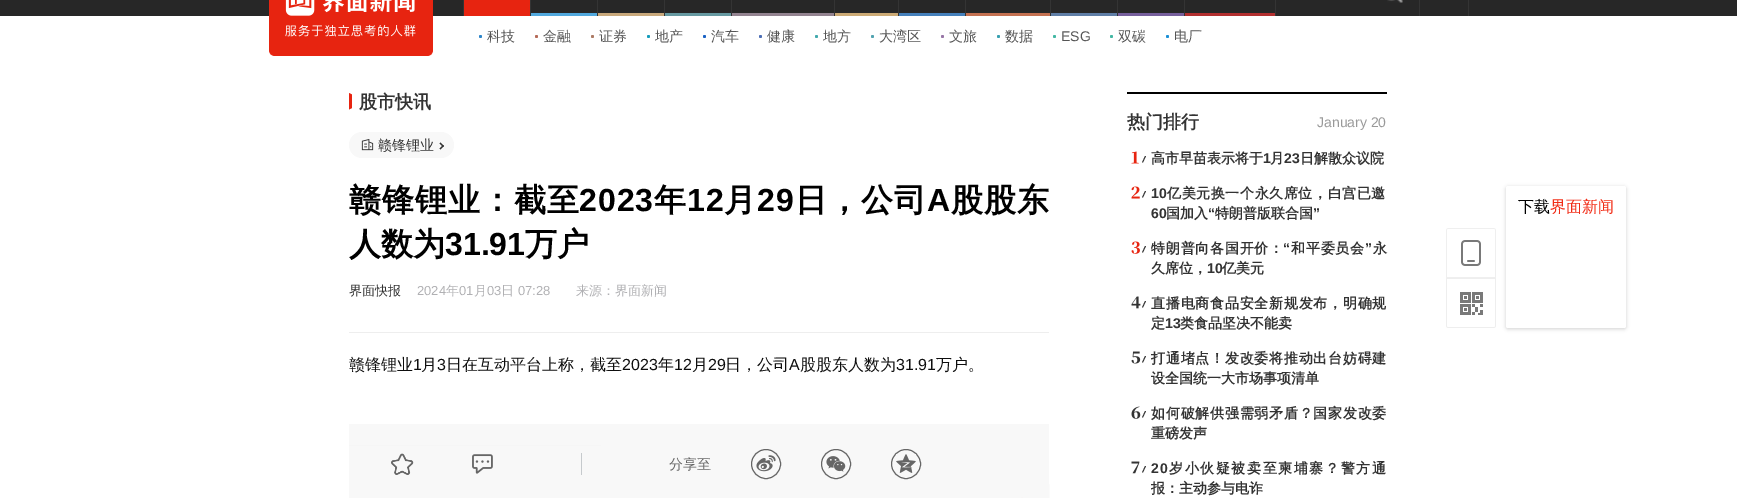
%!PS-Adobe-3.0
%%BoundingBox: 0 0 1737 498
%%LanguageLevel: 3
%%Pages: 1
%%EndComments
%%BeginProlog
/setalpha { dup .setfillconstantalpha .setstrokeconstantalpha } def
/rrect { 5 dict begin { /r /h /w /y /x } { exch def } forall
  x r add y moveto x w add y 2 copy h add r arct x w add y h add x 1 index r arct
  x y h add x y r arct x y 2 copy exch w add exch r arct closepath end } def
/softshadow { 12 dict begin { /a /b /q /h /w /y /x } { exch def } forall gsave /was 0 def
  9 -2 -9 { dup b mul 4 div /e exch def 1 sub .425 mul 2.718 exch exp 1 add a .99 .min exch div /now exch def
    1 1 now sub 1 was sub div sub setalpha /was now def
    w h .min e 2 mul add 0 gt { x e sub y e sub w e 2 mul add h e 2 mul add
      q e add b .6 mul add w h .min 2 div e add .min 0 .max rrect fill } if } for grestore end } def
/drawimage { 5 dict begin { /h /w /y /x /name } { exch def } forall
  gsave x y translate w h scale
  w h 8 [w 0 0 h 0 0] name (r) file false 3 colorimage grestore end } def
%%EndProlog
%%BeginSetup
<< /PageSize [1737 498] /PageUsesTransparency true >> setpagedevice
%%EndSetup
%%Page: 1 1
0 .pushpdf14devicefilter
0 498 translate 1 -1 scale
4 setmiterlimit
1 setgray
0 0 1737 498 rectfill
0.153 setgray
0 0 1737 16 rectfill
0.906 0.141 0.063 setrgbcolor
newpath 269 -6 moveto 433 -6 lineto 433 50 lineto 433 53.5 430.5 56 427 56 curveto 275 56 lineto 271.5 56 269 53.5 269 50 curveto closepath fill
(images/1.raw) 285 0 131 37 drawimage
(images/2.raw) 1387 0 16 3 drawimage
0.204 setgray
1468 0 1 16 rectfill
1419 0 1 16 rectfill
597 0 1 16 rectfill
0.318 0.659 0.867 setrgbcolor
531 13 66 3 rectfill
0.204 setgray
664 0 1 16 rectfill
0.784 0.659 0.482 setrgbcolor
598 13 66 3 rectfill
0.204 setgray
731 0 1 16 rectfill
0.4 0.6 0.631 setrgbcolor
665 13 66 3 rectfill
0.204 setgray
834 0 1 16 rectfill
0.576 0.514 0.565 setrgbcolor
732 13 102 3 rectfill
0.204 setgray
898 0 1 16 rectfill
0.8 0.667 0.459 setrgbcolor
835 13 63 3 rectfill
0.204 setgray
965 0 1 16 rectfill
0.271 0.502 0.733 setrgbcolor
899 13 66 3 rectfill
0.204 setgray
1050 0 1 16 rectfill
0.769 0.443 0.318 setrgbcolor
966 13 84 3 rectfill
0.204 setgray
1117 0 1 16 rectfill
0.373 0.494 0.651 setrgbcolor
1051 13 66 3 rectfill
0.204 setgray
1184 0 1 16 rectfill
0.463 0.373 0.612 setrgbcolor
1118 13 66 3 rectfill
0.204 setgray
1275 0 1 16 rectfill
0.698 0.184 0.184 setrgbcolor
1185 13 90 3 rectfill
0.204 setgray
530 0 1 16 rectfill
463 0 1 16 rectfill
0.906 0.141 0.063 setrgbcolor
464 0 66 16 rectfill
0.173 0.522 0.788 setrgbcolor
newpath 480.5 36.5 1.5 0 360 arc closepath fill
0.71 0.416 0.345 setrgbcolor
newpath 536.5 36.5 1.5 0 360 arc closepath fill
0.675 0.478 0.392 setrgbcolor
newpath 592.5 36.5 1.5 0 360 arc closepath fill
0.082 0.612 0.733 setrgbcolor
newpath 648.5 36.5 1.5 0 360 arc closepath fill
0.098 0.38 0.769 setrgbcolor
newpath 704.5 36.5 1.5 0 360 arc closepath fill
0.298 0.431 0.71 setrgbcolor
newpath 760.5 36.5 1.5 0 360 arc closepath fill
0.259 0.663 0.678 setrgbcolor
newpath 816.5 36.5 1.5 0 360 arc closepath fill
0.318 0.639 0.69 setrgbcolor
newpath 872.5 36.5 1.5 0 360 arc closepath fill
0.592 0.459 0.651 setrgbcolor
newpath 942.5 36.5 1.5 0 360 arc closepath fill
0.216 0.627 0.69 setrgbcolor
newpath 998.5 36.5 1.5 0 360 arc closepath fill
0.259 0.718 0.639 setrgbcolor
newpath 1054.5 36.5 1.5 0 360 arc closepath fill
newpath 1111.5 36.5 1.5 0 360 arc closepath fill
0.102 0.561 0.839 setrgbcolor
newpath 1167.5 36.5 1.5 0 360 arc closepath fill
0.906 0.141 0.063 setrgbcolor
newpath 352 94.5 moveto 349 93 lineto 349 109.5 lineto 352 108 lineto closepath fill
0.973 setgray
349 132 105 26 13 rrect fill
(images/3.raw) 361 139 13 12 drawimage
0.2 setgray
newpath 440.5 142.5 moveto 444 146 lineto 443 147 lineto 439.5 143.5 lineto closepath fill
newpath 443 145 moveto 444 146 lineto 440.5 149.5 lineto 439.5 148.5 lineto closepath fill
0.933 setgray
349 332 700 1 rectfill
0.6 setgray
349 445 252 1 rectfill
0.937 setgray
349.5 479.5 699 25 5.5 rrect stroke
0.1 setalpha
0.918 0.384 0.384 setrgbcolor
newpath 355 480 moveto 1043 480 lineto 1046 480 1048 482 1048 485 curveto 1048 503 lineto 350 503 lineto 350 485 lineto 350 482 352 480 355 480 curveto closepath fill
1 setalpha
(images/9.raw) 1021 497 2 1 drawimage
0.98 setalpha
0.973 setgray
349 424 700 74 rectfill
1 setalpha
0.776 0.792 0.804 setrgbcolor
581 453 1 22 rectfill
(images/4.raw) 391 453 23 22 drawimage
(images/5.raw) 472 454 21 20 drawimage
0.4 setgray
newpath 766 464 14.5 0 360 arc closepath stroke
(images/6.raw) 756 455 20 17 drawimage
newpath 836 464 14.5 0 360 arc closepath stroke
(images/7.raw) 826 456 20 16 drawimage
newpath 906 464 14.5 0 360 arc closepath stroke
(images/8.raw) 896 454 20 19 drawimage
0 setgray
1127 92 260 2 rectfill
(images/10.raw) 1131 151 8 13 drawimage
0.2 setgray
newpath 1145 156 moveto 1146 156 lineto 1143 162.5 lineto 1142 162.5 lineto closepath fill
(images/11.raw) 1131 186 9 13 drawimage
newpath 1145 191 moveto 1146 191 lineto 1143 197.5 lineto 1142 197.5 lineto closepath fill
(images/12.raw) 1131 241 9 13 drawimage
newpath 1145 246 moveto 1146 246 lineto 1143 252.5 lineto 1142 252.5 lineto closepath fill
(images/13.raw) 1131 296 10 13 drawimage
newpath 1145 301 moveto 1146 301 lineto 1143 307.5 lineto 1142 307.5 lineto closepath fill
(images/14.raw) 1131 351 10 13 drawimage
newpath 1145 356 moveto 1146 356 lineto 1143 362.5 lineto 1142 362.5 lineto closepath fill
(images/15.raw) 1131 406 10 13 drawimage
newpath 1145 411 moveto 1146 411 lineto 1143 417.5 lineto 1142 417.5 lineto closepath fill
(images/16.raw) 1131 461 9 13 drawimage
newpath 1145 466 moveto 1146 466 lineto 1143 472.5 lineto 1142 472.5 lineto closepath fill
(images/17.raw) 1446 228 50 50 drawimage
0 setgray
1506 187 120 142 2 2 0.18 softshadow
1 setgray
1506 186 120 142 2 rrect fill
(images/18.raw) 1446 278 50 50 drawimage
/WenQuanYiZenHei-Medium [14 0 0 -14 0 0] selectfont
0.333 setgray
487 41 moveto (科技) show
543 41 moveto (金融) show
599 41 moveto (证券) show
655 41 moveto (地产) show
711 41 moveto (汽车) show
767 41 moveto (健康) show
823 41 moveto (地方) show
879 41 moveto (大湾区) show
949 41 moveto (文旅) show
1005 41 moveto (数据) show
/LiberationSans-Regular [14 0 0 -14 0 0] selectfont
1061 41 moveto (ESG) show
/WenQuanYiZenHei-Medium [14 0 0 -14 0 0] selectfont
1118 41 moveto (双碳) show
1174 41 moveto (电厂) show
/WenQuanYiZenHei-Bold [18 0 0 -18 0 0] selectfont
0.2 setgray
359 108 moveto (股市快讯) show
/WenQuanYiZenHei-Medium [14 0 0 -14 0 0] selectfont
378 150 moveto (赣锋锂业) show
/WenQuanYiZenHei-Bold [32 0 0 -32 0 0] selectfont
0 setgray
349 211 moveto 1 0 (赣锋锂业：截至) ashow
/LiberationSans-Bold [32 0 0 -32 0 0] selectfont
579 211 moveto 1 0 (2023) ashow
/WenQuanYiZenHei-Bold [32 0 0 -32 0 0] selectfont
654 211 moveto 1 0 (年) ashow
/LiberationSans-Bold [32 0 0 -32 0 0] selectfont
687 211 moveto 1 0 (12) ashow
/WenQuanYiZenHei-Bold [32 0 0 -32 0 0] selectfont
724 211 moveto 1 0 (月) ashow
/LiberationSans-Bold [32 0 0 -32 0 0] selectfont
757 211 moveto 1 0 (29) ashow
/WenQuanYiZenHei-Bold [32 0 0 -32 0 0] selectfont
795 211 moveto 1 0 (日，公司) ashow
/LiberationSans-Bold [32 0 0 -32 0 0] selectfont
927 211 moveto 1 0 (A) ashow
/WenQuanYiZenHei-Bold [32 0 0 -32 0 0] selectfont
951 211 moveto 1 0 (股股东) ashow
349 255 moveto (人数为) show
/LiberationSans-Bold [32 0 0 -32 0 0] selectfont
445 255 moveto (31.91) show
/WenQuanYiZenHei-Bold [32 0 0 -32 0 0] selectfont
525 255 moveto (万户) show
/WenQuanYiZenHei-Medium [13 0 0 -13 0 0] selectfont
0.2 setgray
349 295 moveto (界面快报) show
/LiberationSans-Regular [13 0 0 -13 0 0] selectfont
0.69 0.69 0.702 setrgbcolor
417 295 moveto (2024) show
/WenQuanYiZenHei-Medium [13 0 0 -13 0 0] selectfont
446 295 moveto (年) show
/LiberationSans-Regular [13 0 0 -13 0 0] selectfont
459 295 moveto (01) show
/WenQuanYiZenHei-Medium [13 0 0 -13 0 0] selectfont
474 295 moveto (月) show
/LiberationSans-Regular [13 0 0 -13 0 0] selectfont
487 295 moveto (03) show
/WenQuanYiZenHei-Medium [13 0 0 -13 0 0] selectfont
501 295 moveto (日) show
/LiberationSans-Regular [13 0 0 -13 0 0] selectfont
518 295 moveto (07:28) show
/WenQuanYiZenHei-Medium [13 0 0 -13 0 0] selectfont
576 295 moveto (来源：界面新闻) show
/WenQuanYiZenHei-Medium [16 0 0 -16 0 0] selectfont
0.055 setgray
349 370 moveto (赣锋锂业) show
/LiberationSans-Regular [16 0 0 -16 0 0] selectfont
413 370 moveto (1) show
/WenQuanYiZenHei-Medium [16 0 0 -16 0 0] selectfont
421 370 moveto (月) show
/LiberationSans-Regular [16 0 0 -16 0 0] selectfont
437 370 moveto (3) show
/WenQuanYiZenHei-Medium [16 0 0 -16 0 0] selectfont
446 370 moveto (日在互动平台上称，截至) show
/LiberationSans-Regular [16 0 0 -16 0 0] selectfont
622 370 moveto (2023) show
/WenQuanYiZenHei-Medium [16 0 0 -16 0 0] selectfont
658 370 moveto (年) show
/LiberationSans-Regular [16 0 0 -16 0 0] selectfont
674 370 moveto (12) show
/WenQuanYiZenHei-Medium [16 0 0 -16 0 0] selectfont
692 370 moveto (月) show
/LiberationSans-Regular [16 0 0 -16 0 0] selectfont
708 370 moveto (29) show
/WenQuanYiZenHei-Medium [16 0 0 -16 0 0] selectfont
725 370 moveto (日，公司) show
/LiberationSans-Regular [16 0 0 -16 0 0] selectfont
789 370 moveto (A) show
/WenQuanYiZenHei-Medium [16 0 0 -16 0 0] selectfont
800 370 moveto (股股东人数为) show
/LiberationSans-Regular [16 0 0 -16 0 0] selectfont
896 370 moveto (31.91) show
/WenQuanYiZenHei-Medium [16 0 0 -16 0 0] selectfont
936 370 moveto (万户。) show
/WenQuanYiZenHei-Medium [14 0 0 -14 0 0] selectfont
0.4 setgray
669 469 moveto (分享至) show
/WenQuanYiZenHei-Bold [18 0 0 -18 0 0] selectfont
0.2 setgray
1127 128 moveto (热门排行) show
/LiberationSans-Regular [14 0 0 -14 0 0] selectfont
0.6 setgray
1317 127 moveto (January 20) show
/WenQuanYiZenHei-Bold [14 0 0 -14 0 0] selectfont
0.2 setgray
1151 163 moveto (高市早苗表示将于) show
/LiberationSans-Bold [14 0 0 -14 0 0] selectfont
1263 163 moveto (1) show
/WenQuanYiZenHei-Bold [14 0 0 -14 0 0] selectfont
1270 163 moveto (月) show
/LiberationSans-Bold [14 0 0 -14 0 0] selectfont
1284 163 moveto (23) show
/WenQuanYiZenHei-Bold [14 0 0 -14 0 0] selectfont
1300 163 moveto (日解散众议院) show
/LiberationSans-Bold [14 0 0 -14 0 0] selectfont
1151 198 moveto 0.6 0 (10) ashow
/WenQuanYiZenHei-Bold [14 0 0 -14 0 0] selectfont
1167 198 moveto 0.6 0 (亿美元换一个永久席位，白宫已邀) ashow
/LiberationSans-Bold [14 0 0 -14 0 0] selectfont
1151 218 moveto (60) show
/WenQuanYiZenHei-Bold [14 0 0 -14 0 0] selectfont
1166 218 moveto (国加入) show
/LiberationSans-Bold [14 0 0 -14 0 0] selectfont
1208 218 moveto (“) show
/WenQuanYiZenHei-Bold [14 0 0 -14 0 0] selectfont
1215 218 moveto (特朗普版联合国) show
/LiberationSans-Bold [14 0 0 -14 0 0] selectfont
1313 218 moveto (”) show
gsave
1151 238 236 40 rectclip
/WenQuanYiZenHei-Bold [14 0 0 -14 0 0] selectfont
1151 253 moveto 0.75 0 (特朗普向各国开价：) ashow
grestore
1283 253 moveto 0.75 0 (“) ashow
/WenQuanYiZenHei-Bold [14 0 0 -14 0 0] selectfont
1291 253 moveto 0.75 0 (和平委员会) ashow
/LiberationSans-Bold [14 0 0 -14 0 0] selectfont
1365 253 moveto 0.75 0 (”) ashow
/WenQuanYiZenHei-Bold [14 0 0 -14 0 0] selectfont
1373 253 moveto 0.75 0 (永) ashow
1151 273 moveto (久席位，) show
/LiberationSans-Bold [14 0 0 -14 0 0] selectfont
1207 273 moveto (10) show
/WenQuanYiZenHei-Bold [14 0 0 -14 0 0] selectfont
1222 273 moveto (亿美元) show
1151 308 moveto 0.75 0 (直播电商食品安全新规发布，明确规) ashow
1151 328 moveto (定) show
/LiberationSans-Bold [14 0 0 -14 0 0] selectfont
1165 328 moveto (13) show
/WenQuanYiZenHei-Bold [14 0 0 -14 0 0] selectfont
1180 328 moveto (类食品坚决不能卖) show
gsave
1151 348 236 40 rectclip
1151 363 moveto 0.75 0 (打通堵点！发改委将推动出台妨碍建) ashow
grestore
1151 383 moveto (设全国统一大市场事项清单) show
1151 418 moveto 0.75 0 (如何破解供强需弱矛盾？国家发改委) ashow
1151 438 moveto (重磅发声) show
/LiberationSans-Bold [14 0 0 -14 0 0] selectfont
1151 473 moveto 1.6 0 (20) ashow
/WenQuanYiZenHei-Bold [14 0 0 -14 0 0] selectfont
1169 473 moveto 1.6 0 (岁小伙疑被卖至柬埔寨？警方通) ashow
gsave
1151 458 236 40 rectclip
1151 493 moveto (报：主动参与电诈) show
grestore
/WenQuanYiZenHei-Medium [16 0 0 -16 0 0] selectfont
0 setgray
1518 212 moveto (下载) show
0.945 0.169 0.082 setrgbcolor
1550 212 moveto (界面新闻) show
.poppdf14devicefilter showpage
%%EOF
